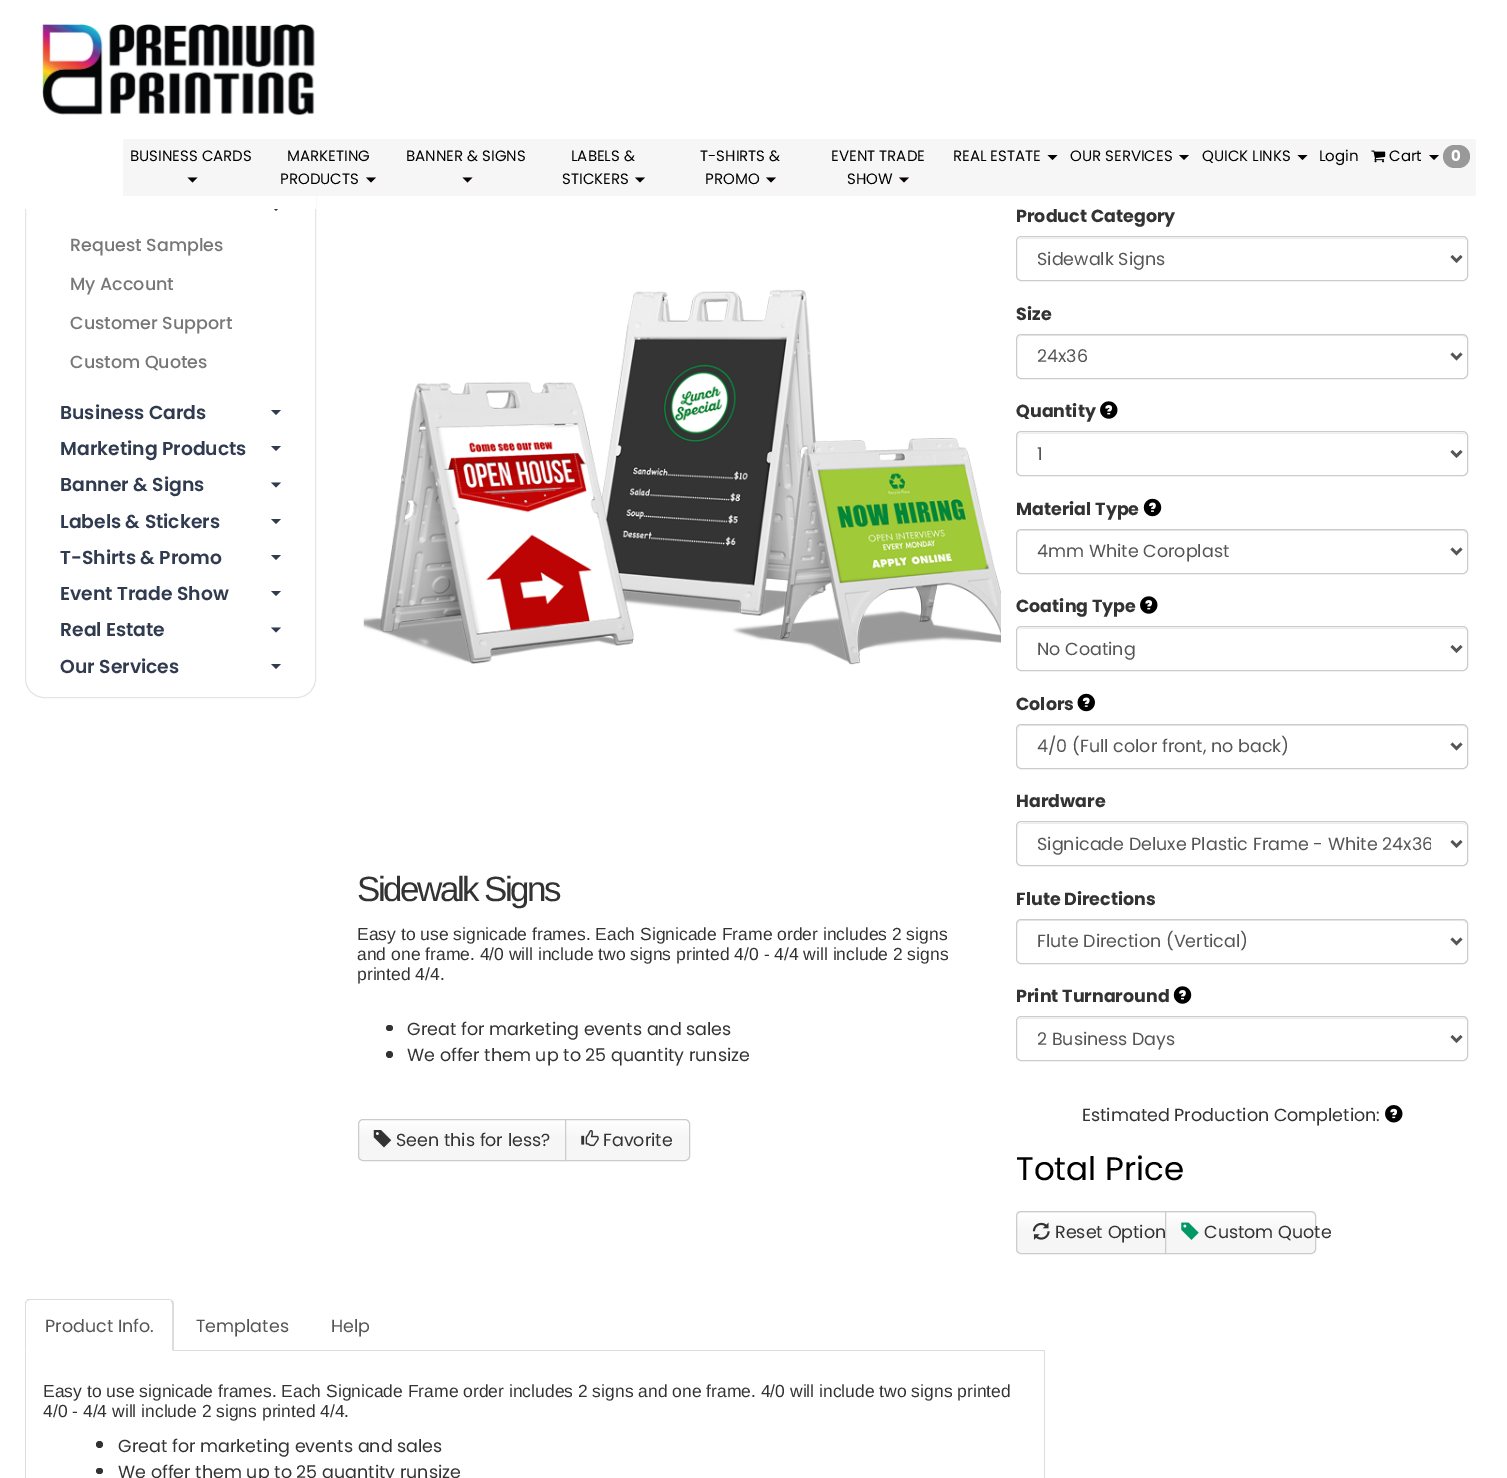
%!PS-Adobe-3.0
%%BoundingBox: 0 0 1507 1478
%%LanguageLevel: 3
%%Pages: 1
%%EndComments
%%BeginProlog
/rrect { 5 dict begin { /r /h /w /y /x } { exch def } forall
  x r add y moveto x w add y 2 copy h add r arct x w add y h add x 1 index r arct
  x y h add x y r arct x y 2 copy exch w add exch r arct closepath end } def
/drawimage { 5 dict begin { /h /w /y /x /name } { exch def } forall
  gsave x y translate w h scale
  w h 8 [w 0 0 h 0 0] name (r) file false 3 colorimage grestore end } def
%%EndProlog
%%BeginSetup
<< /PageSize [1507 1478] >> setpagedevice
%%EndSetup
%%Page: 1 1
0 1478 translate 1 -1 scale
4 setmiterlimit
1 setgray
0 0 1507 1478 rectfill
0.898 setgray
25.5 176.5 290 521 18.5 rrect stroke
0.192 0.231 0.314 setrgbcolor
newpath 271 206 moveto 281 206 lineto 276 211 lineto closepath fill
1 setgray
25 176 291 33 rectfill
(images/1.raw) 42 24 273 92 drawimage
0.965 setgray
123 139 1353 57 rectfill
0.031 0 0.031 setrgbcolor
newpath 187.5 177.5 moveto 197.5 177.5 lineto 192.5 182.5 lineto closepath fill
newpath 366 177.5 moveto 376 177.5 lineto 371 182.5 lineto closepath fill
newpath 462.5 177.5 moveto 472.5 177.5 lineto 467.5 182.5 lineto closepath fill
newpath 635 177.5 moveto 645 177.5 lineto 640 182.5 lineto closepath fill
newpath 766 177.5 moveto 776 177.5 lineto 771 182.5 lineto closepath fill
newpath 899 177.5 moveto 909 177.5 lineto 904 182.5 lineto closepath fill
newpath 1047.5 155 moveto 1057.5 155 lineto 1052.5 160 lineto closepath fill
newpath 1179 155 moveto 1189 155 lineto 1184 160 lineto closepath fill
newpath 1297.5 155 moveto 1307.5 155 lineto 1302.5 160 lineto closepath fill
(images/2.raw) 1371 150 15 13 drawimage
newpath 1429 155 moveto 1439 155 lineto 1434 160 lineto closepath fill
0.6 setgray
1443 145 27 23 11.5 rrect fill
0.192 0.231 0.314 setrgbcolor
newpath 271 410 moveto 281 410 lineto 276 415 lineto closepath fill
newpath 271 446 moveto 281 446 lineto 276 451 lineto closepath fill
newpath 271 482.5 moveto 281 482.5 lineto 276 487.5 lineto closepath fill
newpath 271 519 moveto 281 519 lineto 276 524 lineto closepath fill
newpath 271 555 moveto 281 555 lineto 276 560 lineto closepath fill
newpath 271 591 moveto 281 591 lineto 276 596 lineto closepath fill
newpath 271 627.5 moveto 281 627.5 lineto 276 632.5 lineto closepath fill
newpath 271 664 moveto 281 664 lineto 276 669 lineto closepath fill
0.925 setgray
newpath 1021 239 moveto 1464 239 lineto 1466 240 lineto 1465 239 1464 238 1462 238 curveto 1022 238 lineto 1021 238 1019 239 1019 240 curveto closepath fill
0.8 setgray
1016.5 236.5 451 44 4.5 rrect stroke
0.333 setgray
2.5 setlinewidth
newpath 1451.5 256 moveto 1456.5 261 lineto 1461.5 256 lineto stroke
0.925 setgray
newpath 1021 336 moveto 1462 336 lineto 1465 336 1466 338 1466 340 curveto 1466 337 1465 335 1462 335 curveto 1022 335 lineto 1020 336 lineto 1019 337 lineto 1018 340 lineto 1018 338 1019 336 1021 336 curveto closepath fill
0.8 setgray
1 setlinewidth
1016.5 334.5 451 44 4.5 rrect stroke
0.333 setgray
2.5 setlinewidth
newpath 1451.5 353.5 moveto 1456.5 358.5 lineto 1461.5 353.5 lineto stroke
(images/3.raw) 1100 401 18 18 drawimage
0.925 setgray
newpath 1021 434 moveto 1462 434 lineto 1465 434 1466 435 1466 438 curveto 1466 435 1465 433 1462 433 curveto 1022 433 lineto 1020 434 lineto 1019 435 lineto 1018 438 lineto 1018 435 1019 434 1021 434 curveto closepath fill
0.8 setgray
1 setlinewidth
1016.5 431.5 451 44 4.5 rrect stroke
0.333 setgray
2.5 setlinewidth
newpath 1451.5 451 moveto 1456.5 456 lineto 1461.5 451 lineto stroke
(images/4.raw) 1143 498 19 19 drawimage
0.925 setgray
newpath 1021 531 moveto 1462 531 lineto 1465 531 1466 533 1466 535 curveto 1466 532 1465 530 1462 530 curveto 1022 530 lineto 1020 531 lineto 1019 532 lineto 1018 535 lineto 1018 533 1019 531 1021 531 curveto closepath fill
0.8 setgray
1 setlinewidth
1016.5 529.5 451 44 4.5 rrect stroke
0.333 setgray
2.5 setlinewidth
newpath 1451.5 548.5 moveto 1456.5 553.5 lineto 1461.5 548.5 lineto stroke
(images/3.raw) 1140 596 18 18 drawimage
0.925 setgray
newpath 1021 629 moveto 1464 629 lineto 1466 630 lineto 1465 629 1464 628 1462 628 curveto 1022 628 lineto 1021 628 1019 629 1019 630 curveto closepath fill
0.8 setgray
1 setlinewidth
1016.5 626.5 451 44 4.5 rrect stroke
0.333 setgray
2.5 setlinewidth
newpath 1451.5 646 moveto 1456.5 651 lineto 1461.5 646 lineto stroke
(images/5.raw) 1077 693 18 19 drawimage
0.925 setgray
newpath 1021 726 moveto 1462 726 lineto 1465 726 1466 728 1466 730 curveto 1466 727 1465 725 1462 725 curveto 1022 725 lineto 1020 726 lineto 1019 727 lineto 1018 730 lineto 1018 728 1019 726 1021 726 curveto closepath fill
0.8 setgray
1 setlinewidth
1016.5 724.5 451 44 4.5 rrect stroke
0.333 setgray
2.5 setlinewidth
newpath 1451.5 743.5 moveto 1456.5 748.5 lineto 1461.5 743.5 lineto stroke
0.925 setgray
newpath 1021 824 moveto 1462 824 lineto 1465 824 1466 825 1466 828 curveto 1466 825 1465 823 1462 823 curveto 1022 823 lineto 1020 824 lineto 1019 825 lineto 1018 828 lineto 1018 825 1019 824 1021 824 curveto closepath fill
0.8 setgray
1 setlinewidth
1016.5 821.5 451 44 4.5 rrect stroke
0.333 setgray
2.5 setlinewidth
newpath 1451.5 841 moveto 1456.5 846 lineto 1461.5 841 lineto stroke
0.925 setgray
newpath 1021 921 moveto 1462 921 lineto 1465 921 1466 923 1466 925 curveto 1466 922 1465 920 1462 920 curveto 1022 920 lineto 1020 921 lineto 1019 922 lineto 1018 925 lineto 1018 923 1019 921 1021 921 curveto closepath fill
0.8 setgray
1 setlinewidth
1016.5 919.5 451 44 4.5 rrect stroke
0.333 setgray
2.5 setlinewidth
newpath 1451.5 938.5 moveto 1456.5 943.5 lineto 1461.5 938.5 lineto stroke
(images/6.raw) 1173 986 19 18 drawimage
0.925 setgray
newpath 1021 1019 moveto 1464 1019 lineto 1466 1020 lineto 1465 1019 1464 1018 1462 1018 curveto 1022 1018 lineto 1021 1018 1019 1019 1019 1020 curveto closepath fill
0.8 setgray
1 setlinewidth
1016.5 1016.5 451 44 4.5 rrect stroke
0.333 setgray
2.5 setlinewidth
newpath 1451.5 1036 moveto 1456.5 1041 lineto 1461.5 1036 lineto stroke
(images/7.raw) 1385 1105 18 18 drawimage
gsave
newpath 1021 1211 moveto 1166 1211 lineto 1166 1254 lineto 1021 1254 lineto 1018 1254 1016 1252 1016 1249 curveto 1016 1216 lineto 1016 1213 1018 1211 1021 1211 curveto closepath clip newpath
gsave newpath 1016 1211 moveto 1166 1211 lineto 1166 1213 lineto 1016 1213 lineto closepath clip newpath
<< /ShadingType 2 /ColorSpace /DeviceRGB /Coords [1091 1173 1091 1213] /Extend [true true] /Function << /FunctionType 3 /Domain [0 1] /Functions [<< /FunctionType 2 /Domain [0 1] /C0 [1 1 1] /C1 [0.965 0.965 0.965] /N 1 >> << /FunctionType 2 /Domain [0 1] /C0 [0.965 0.965 0.965] /C1 [0.969 0.969 0.969] /N 1 >>] /Bounds [0.47] /Encode [0 1 0 1] >> >> shfill grestore
gsave newpath 1016 1213 moveto 1165 1213 lineto 1165 1253 lineto 1016 1253 lineto closepath clip newpath
<< /ShadingType 2 /ColorSpace /DeviceRGB /Coords [1091 1213 1091 1253] /Extend [true true] /Function << /FunctionType 3 /Domain [0 1] /Functions [<< /FunctionType 2 /Domain [0 1] /C0 [1 1 1] /C1 [0.965 0.965 0.965] /N 1 >> << /FunctionType 2 /Domain [0 1] /C0 [0.965 0.965 0.965] /C1 [0.969 0.969 0.969] /N 1 >>] /Bounds [0.47] /Encode [0 1 0 1] >> >> shfill grestore
grestore
0.8 setgray
1 setlinewidth
newpath 1021 1211.5 moveto 1165.5 1211.5 lineto 1165.5 1253.5 lineto 1021 1253.5 lineto 1018.5 1253.5 1016.5 1251.5 1016.5 1249 curveto 1016.5 1216 lineto 1016.5 1213.5 1018.5 1211.5 1021 1211.5 curveto closepath stroke
(images/8.raw) 1032 1222 18 18 drawimage
gsave
newpath 1165 1211 moveto 1311 1211 lineto 1314 1211 1316 1213 1316 1216 curveto 1316 1249 lineto 1316 1252 1314 1254 1311 1254 curveto 1165 1254 lineto closepath clip newpath
gsave newpath 1165 1211 moveto 1316 1211 lineto 1316 1213 lineto 1165 1213 lineto closepath clip newpath
<< /ShadingType 2 /ColorSpace /DeviceRGB /Coords [1241 1173 1241 1213] /Extend [true true] /Function << /FunctionType 3 /Domain [0 1] /Functions [<< /FunctionType 2 /Domain [0 1] /C0 [1 1 1] /C1 [0.965 0.965 0.965] /N 1 >> << /FunctionType 2 /Domain [0 1] /C0 [0.965 0.965 0.965] /C1 [0.969 0.969 0.969] /N 1 >>] /Bounds [0.47] /Encode [0 1 0 1] >> >> shfill grestore
gsave newpath 1166 1213 moveto 1316 1213 lineto 1316 1253 lineto 1166 1253 lineto closepath clip newpath
<< /ShadingType 2 /ColorSpace /DeviceRGB /Coords [1241 1213 1241 1253] /Extend [true true] /Function << /FunctionType 3 /Domain [0 1] /Functions [<< /FunctionType 2 /Domain [0 1] /C0 [1 1 1] /C1 [0.965 0.965 0.965] /N 1 >> << /FunctionType 2 /Domain [0 1] /C0 [0.965 0.965 0.965] /C1 [0.969 0.969 0.969] /N 1 >>] /Bounds [0.47] /Encode [0 1 0 1] >> >> shfill grestore
grestore
newpath 1165.5 1211.5 moveto 1311 1211.5 lineto 1313.5 1211.5 1315.5 1213.5 1315.5 1216 curveto 1315.5 1249 lineto 1315.5 1251.5 1313.5 1253.5 1311 1253.5 curveto 1165.5 1253.5 lineto closepath stroke
(images/9.raw) 1181 1222 18 18 drawimage
(images/10.raw) 363 289 638 376 drawimage
0.2 setgray
386 1025 7 6 3 rrect fill
newpath 389.5 1054.5 3.5 0 360 arc closepath fill
gsave
newpath 363 1119 moveto 566 1119 lineto 566 1161 lineto 363 1161 lineto 360 1161 358 1159 358 1156 curveto 358 1124 lineto 358 1121 360 1119 363 1119 curveto closepath clip newpath
gsave newpath 358 1120 moveto 565 1120 lineto 565 1160 lineto 358 1160 lineto closepath clip newpath
<< /ShadingType 2 /ColorSpace /DeviceRGB /Coords [462 1120 462 1160] /Extend [true true] /Function << /FunctionType 3 /Domain [0 1] /Functions [<< /FunctionType 2 /Domain [0 1] /C0 [1 1 1] /C1 [0.965 0.965 0.965] /N 1 >> << /FunctionType 2 /Domain [0 1] /C0 [0.965 0.965 0.965] /C1 [0.969 0.969 0.969] /N 1 >>] /Bounds [0.47] /Encode [0 1 0 1] >> >> shfill grestore
grestore
0.8 setgray
newpath 363 1119.5 moveto 565.5 1119.5 lineto 565.5 1160.5 lineto 363 1160.5 lineto 360.5 1160.5 358.5 1158.5 358.5 1156 curveto 358.5 1124 lineto 358.5 1121.5 360.5 1119.5 363 1119.5 curveto closepath stroke
(images/11.raw) 373 1130 19 18 drawimage
gsave
newpath 565 1119 moveto 685 1119 lineto 688 1119 690 1121 690 1124 curveto 690 1156 lineto 690 1159 688 1161 685 1161 curveto 565 1161 lineto closepath clip newpath
gsave newpath 566 1120 moveto 690 1120 lineto 690 1160 lineto 566 1160 lineto closepath clip newpath
<< /ShadingType 2 /ColorSpace /DeviceRGB /Coords [628 1120 628 1160] /Extend [true true] /Function << /FunctionType 3 /Domain [0 1] /Functions [<< /FunctionType 2 /Domain [0 1] /C0 [1 1 1] /C1 [0.965 0.965 0.965] /N 1 >> << /FunctionType 2 /Domain [0 1] /C0 [0.965 0.965 0.965] /C1 [0.969 0.969 0.969] /N 1 >>] /Bounds [0.47] /Encode [0 1 0 1] >> >> shfill grestore
grestore
newpath 565.5 1119.5 moveto 685 1119.5 lineto 687.5 1119.5 689.5 1121.5 689.5 1124 curveto 689.5 1156 lineto 689.5 1158.5 687.5 1160.5 685 1160.5 curveto 565.5 1160.5 lineto closepath stroke
(images/12.raw) 581 1130 18 17 drawimage
0.867 setgray
174 1350 871 1 rectfill
newpath 30 1299 moveto 29 1299 27 1299 27 1300 curveto 27 1301 lineto 30 1300 lineto 170 1300 lineto 171 1301 lineto 172 1300 lineto 169 1299 lineto closepath fill
newpath 172 1300 moveto 174 1302 lineto 174 1351 lineto 172 1350 lineto 172 1304 lineto 171 1301 lineto closepath fill
newpath 25 1304 moveto 25 1351 lineto 26 1350 lineto 26 1303 lineto 27 1301 lineto 27 1300 lineto 26 1301 25 1302 25 1304 curveto closepath fill
1044 1351 1 127 rectfill
25 1351 1 127 rectfill
0.2 setgray
newpath 99.5 1444.5 3.5 0 360 arc closepath fill
96 1468 7 6 3 rrect fill
/Poppins-Regular [15 0 0 -15 0 0] selectfont
0 setgray
130 161 moveto (BUSINESS CARDS) show
287 161 moveto (MARKETING) show
280 184 moveto (PRODUCTS) show
406 161 moveto (BANNER & SIGNS) show
571 161 moveto (LABELS &) show
562 184 moveto (STICKERS) show
700 161 moveto (T-SHIRTS &) show
705 184 moveto (PROMO) show
831 161 moveto (EVENT TRADE) show
847 184 moveto (SHOW) show
953 161 moveto (REAL ESTATE) show
1070 161 moveto (OUR SERVICES) show
1202 161 moveto (QUICK LINKS) show
1319 161 moveto (Login) show
1389 161 moveto (Cart) show
/Poppins-Bold [15 0 0 -15 0 0] selectfont
1 setgray
1451 161 moveto (0) show
/Poppins-Medium [17.5 0 0 -17.5 0 0] selectfont
0.467 setgray
70 251 moveto (Request Samples) show
70 290 moveto (My Account) show
70 329 moveto (Customer Support) show
70 368 moveto (Custom Quotes) show
/Poppins-SemiBold [18.75 0 0 -18.75 0 0] selectfont
0.192 0.231 0.314 setrgbcolor
60 419 moveto (Business Cards) show
60 455 moveto (Marketing Products) show
60 491 moveto (Banner & Signs) show
60 528 moveto (Labels & Stickers) show
60 564 moveto (T-Shirts & Promo) show
60 600 moveto (Event Trade Show) show
60 636 moveto (Real Estate) show
60 673 moveto (Our Services) show
/Poppins-Bold [17.5 0 0 -17.5 0 0] selectfont
0.2 setgray
1016 222 moveto (Product Category) show
/Poppins-Regular [17.5 0 0 -17.5 0 0] selectfont
0.333 setgray
1037 265 moveto (Sidewalk Signs) show
/Poppins-Bold [17.5 0 0 -17.5 0 0] selectfont
0.2 setgray
1016 320 moveto (Size) show
/Poppins-Regular [17.5 0 0 -17.5 0 0] selectfont
0.333 setgray
1037 362 moveto (24x36) show
/Poppins-Bold [17.5 0 0 -17.5 0 0] selectfont
0.2 setgray
1016 417 moveto (Quantity) show
/Poppins-Regular [17.5 0 0 -17.5 0 0] selectfont
0.333 setgray
1037 460 moveto (1) show
/Poppins-Bold [17.5 0 0 -17.5 0 0] selectfont
0.2 setgray
1016 515 moveto (Material Type) show
/Poppins-Regular [17.5 0 0 -17.5 0 0] selectfont
0.333 setgray
1037 557 moveto (4mm White Coroplast) show
/Poppins-Bold [17.5 0 0 -17.5 0 0] selectfont
0.2 setgray
1016 612 moveto (Coating Type) show
/Poppins-Regular [17.5 0 0 -17.5 0 0] selectfont
0.333 setgray
1037 655 moveto (No Coating) show
/Poppins-Bold [17.5 0 0 -17.5 0 0] selectfont
0.2 setgray
1016 710 moveto (Colors) show
/Poppins-Regular [17.5 0 0 -17.5 0 0] selectfont
0.333 setgray
1037 752 moveto (4/0 \(Full color front, no back\)) show
/Poppins-Bold [17.5 0 0 -17.5 0 0] selectfont
0.2 setgray
1016 807 moveto (Hardware) show
gsave
1038 830 393 28 rectclip
/Poppins-Regular [17.5 0 0 -17.5 0 0] selectfont
0.333 setgray
1037 850 moveto (Signicade Deluxe Plastic Frame - White 24x36) show
grestore
1016 905 moveto (Flute Directions) show
/Poppins-Regular [17.5 0 0 -17.5 0 0] selectfont
0.333 setgray
1037 947 moveto (Flute Direction \(Vertical\)) show
/Poppins-Bold [17.5 0 0 -17.5 0 0] selectfont
0.2 setgray
1016 1002 moveto (Print Turnaround) show
/Poppins-Regular [17.5 0 0 -17.5 0 0] selectfont
0.333 setgray
1037 1045 moveto (2 Business Days) show
0.2 setgray
1082 1121 moveto (Estimated Production Completion:) show
/Poppins-Regular [32.5 0 0 -32.5 0 0] selectfont
0 setgray
1016 1180 moveto (Total Price) show
/Poppins-Regular [17.5 0 0 -17.5 0 0] selectfont
0.2 setgray
1055 1238 moveto (Reset Option) show
1204 1238 moveto (Custom Quote) show
/LiberationSans-Regular [35 0 0 -35 0 0] selectfont
357 901 moveto -2.5 0 (Sidewalk Signs) ashow
/LiberationSans-Regular [17.5 0 0 -17.5 0 0] selectfont
357 940 moveto (Easy to use signicade frames. Each Signicade Frame order includes 2 signs) show
357 960 moveto (and one frame. 4/0 will include two signs printed 4/0 - 4/4 will include 2 signs) show
357 980 moveto (printed 4/4.) show
/Poppins-Regular [17.5 0 0 -17.5 0 0] selectfont
407 1035 moveto (Great for marketing events and sales) show
407 1061 moveto (We offer them up to 25 quantity runsize) show
396 1146 moveto (Seen this for less?) show
603 1146 moveto (Favorite) show
0.333 setgray
45 1332 moveto (Product Info.) show
196 1332 moveto (Templates) show
331 1332 moveto (Help) show
/LiberationSans-Regular [17.5 0 0 -17.5 0 0] selectfont
0.2 setgray
43 1397 moveto (Easy to use signicade frames. Each Signicade Frame order includes 2 signs and one frame. 4/0 will include two signs printed) show
43 1417 moveto (4/0 - 4/4 will include 2 signs printed 4/4.) show
/Poppins-Regular [17.5 0 0 -17.5 0 0] selectfont
118 1452 moveto (Great for marketing events and sales) show
118 1478 moveto (We offer them up to 25 quantity runsize) show
showpage
%%EOF
